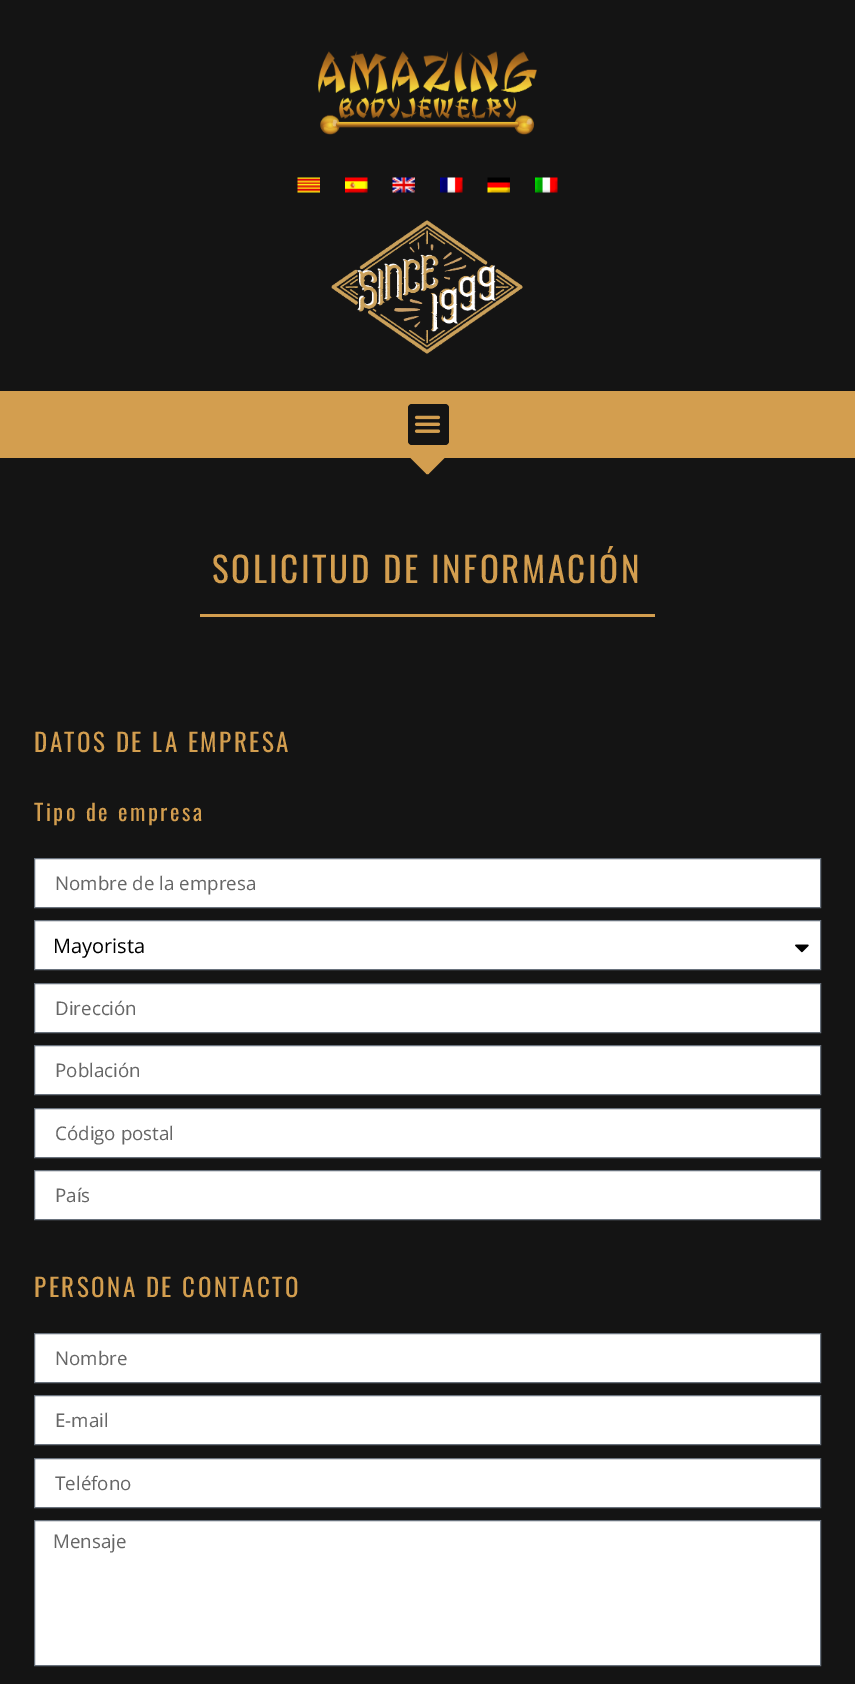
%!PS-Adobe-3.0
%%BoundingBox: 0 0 855 1684
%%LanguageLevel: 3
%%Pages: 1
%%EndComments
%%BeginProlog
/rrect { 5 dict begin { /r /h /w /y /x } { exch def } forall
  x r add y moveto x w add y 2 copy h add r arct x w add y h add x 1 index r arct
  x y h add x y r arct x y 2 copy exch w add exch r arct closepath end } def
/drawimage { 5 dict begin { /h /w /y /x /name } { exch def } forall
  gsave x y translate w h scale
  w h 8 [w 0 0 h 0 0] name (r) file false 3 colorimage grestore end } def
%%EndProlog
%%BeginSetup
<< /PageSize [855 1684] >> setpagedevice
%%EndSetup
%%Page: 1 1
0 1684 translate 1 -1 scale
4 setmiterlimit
0.078 setgray
0 0 855 1684 rectfill
(images/1.raw) 318 51 219 84 drawimage
(images/2.raw) 297 177 23 16 drawimage
(images/3.raw) 345 177 23 16 drawimage
(images/4.raw) 392 177 23 16 drawimage
(images/5.raw) 440 177 23 16 drawimage
(images/6.raw) 487 177 23 16 drawimage
(images/7.raw) 535 177 23 16 drawimage
(images/8.raw) 331 220 192 134 drawimage
0.827 0.62 0.31 setrgbcolor
newpath 412 453.5 moveto 443 453.5 lineto 445.5 453.5 446.5 456 445 457.5 curveto 429 473.5 lineto 428.5 474.5 426.5 474.5 426 473.5 curveto 410 457.5 lineto 408.5 456 409.5 453.5 412 453.5 curveto closepath fill
0 391 855 67 rectfill
0.078 setgray
408 404 41 41 4 rrect fill
(images/9.raw) 414 415 27 18 drawimage
0.827 0.62 0.31 setrgbcolor
200 614 455 3 rectfill
1 setgray
newpath 34.5 858.5 moveto 820.5 858.5 lineto 820.5 907.5 lineto 34.5 907.5 lineto closepath gsave fill grestore
0.412 0.447 0.49 setrgbcolor
stroke
1 setgray
newpath 34.5 920.5 moveto 820.5 920.5 lineto 820.5 969.5 lineto 34.5 969.5 lineto closepath gsave fill grestore
0.412 0.447 0.49 setrgbcolor
stroke
(images/10.raw) 795 944 14 9 drawimage
1 setgray
newpath 34.5 983.5 moveto 820.5 983.5 lineto 820.5 1032.5 lineto 34.5 1032.5 lineto closepath gsave fill grestore
0.412 0.447 0.49 setrgbcolor
stroke
1 setgray
newpath 34.5 1045.5 moveto 820.5 1045.5 lineto 820.5 1094.5 lineto 34.5 1094.5 lineto closepath gsave fill grestore
0.412 0.447 0.49 setrgbcolor
stroke
1 setgray
newpath 34.5 1108.5 moveto 820.5 1108.5 lineto 820.5 1157.5 lineto 34.5 1157.5 lineto closepath gsave fill grestore
0.412 0.447 0.49 setrgbcolor
stroke
1 setgray
newpath 34.5 1170.5 moveto 820.5 1170.5 lineto 820.5 1219.5 lineto 34.5 1219.5 lineto closepath gsave fill grestore
0.412 0.447 0.49 setrgbcolor
stroke
1 setgray
newpath 34.5 1333.5 moveto 820.5 1333.5 lineto 820.5 1382.5 lineto 34.5 1382.5 lineto closepath gsave fill grestore
0.412 0.447 0.49 setrgbcolor
stroke
1 setgray
newpath 34.5 1395.5 moveto 820.5 1395.5 lineto 820.5 1444.5 lineto 34.5 1444.5 lineto closepath gsave fill grestore
0.412 0.447 0.49 setrgbcolor
stroke
1 setgray
newpath 34.5 1458.5 moveto 820.5 1458.5 lineto 820.5 1507.5 lineto 34.5 1507.5 lineto closepath gsave fill grestore
0.412 0.447 0.49 setrgbcolor
stroke
1 setgray
newpath 34.5 1520.5 moveto 820.5 1520.5 lineto 820.5 1665.5 lineto 34.5 1665.5 lineto closepath gsave fill grestore
0.412 0.447 0.49 setrgbcolor
stroke
/Oswald-Regular [35 0 0 -35 0 0] selectfont
0.827 0.62 0.31 setrgbcolor
212 583 moveto 2.6 0 (SOLICITUD DE INFORMACIÓN) ashow
/Oswald-Regular [25 0 0 -25 0 0] selectfont
34 752 moveto 2.5 0 (DATOS DE LA EMPRESA) ashow
/Oswald-Regular [22.5 0 0 -22.5 0 0] selectfont
34 821 moveto 2.5 0 (Tipo de empresa) ashow
/OpenSans-Regular [18.75 0 0 -18.75 0 0] selectfont
0.4 setgray
55 890 moveto (Nombre de la empresa) show
/OpenSans-Regular [20 0 0 -20 0 0] selectfont
0 setgray
53 953 moveto (Mayorista) show
/OpenSans-Regular [18.75 0 0 -18.75 0 0] selectfont
0.4 setgray
55 1015 moveto (Dirección) show
55 1077 moveto (Población) show
55 1140 moveto (Código postal) show
55 1202 moveto (País) show
/Oswald-Regular [25 0 0 -25 0 0] selectfont
0.827 0.62 0.31 setrgbcolor
34 1297 moveto 2.5 0 (PERSONA DE CONTACTO) ashow
/OpenSans-Regular [18.75 0 0 -18.75 0 0] selectfont
0.4 setgray
55 1365 moveto (Nombre) show
55 1427 moveto (E-mail) show
55 1490 moveto (Teléfono) show
53 1548 moveto (Mensaje) show
showpage
%%EOF
